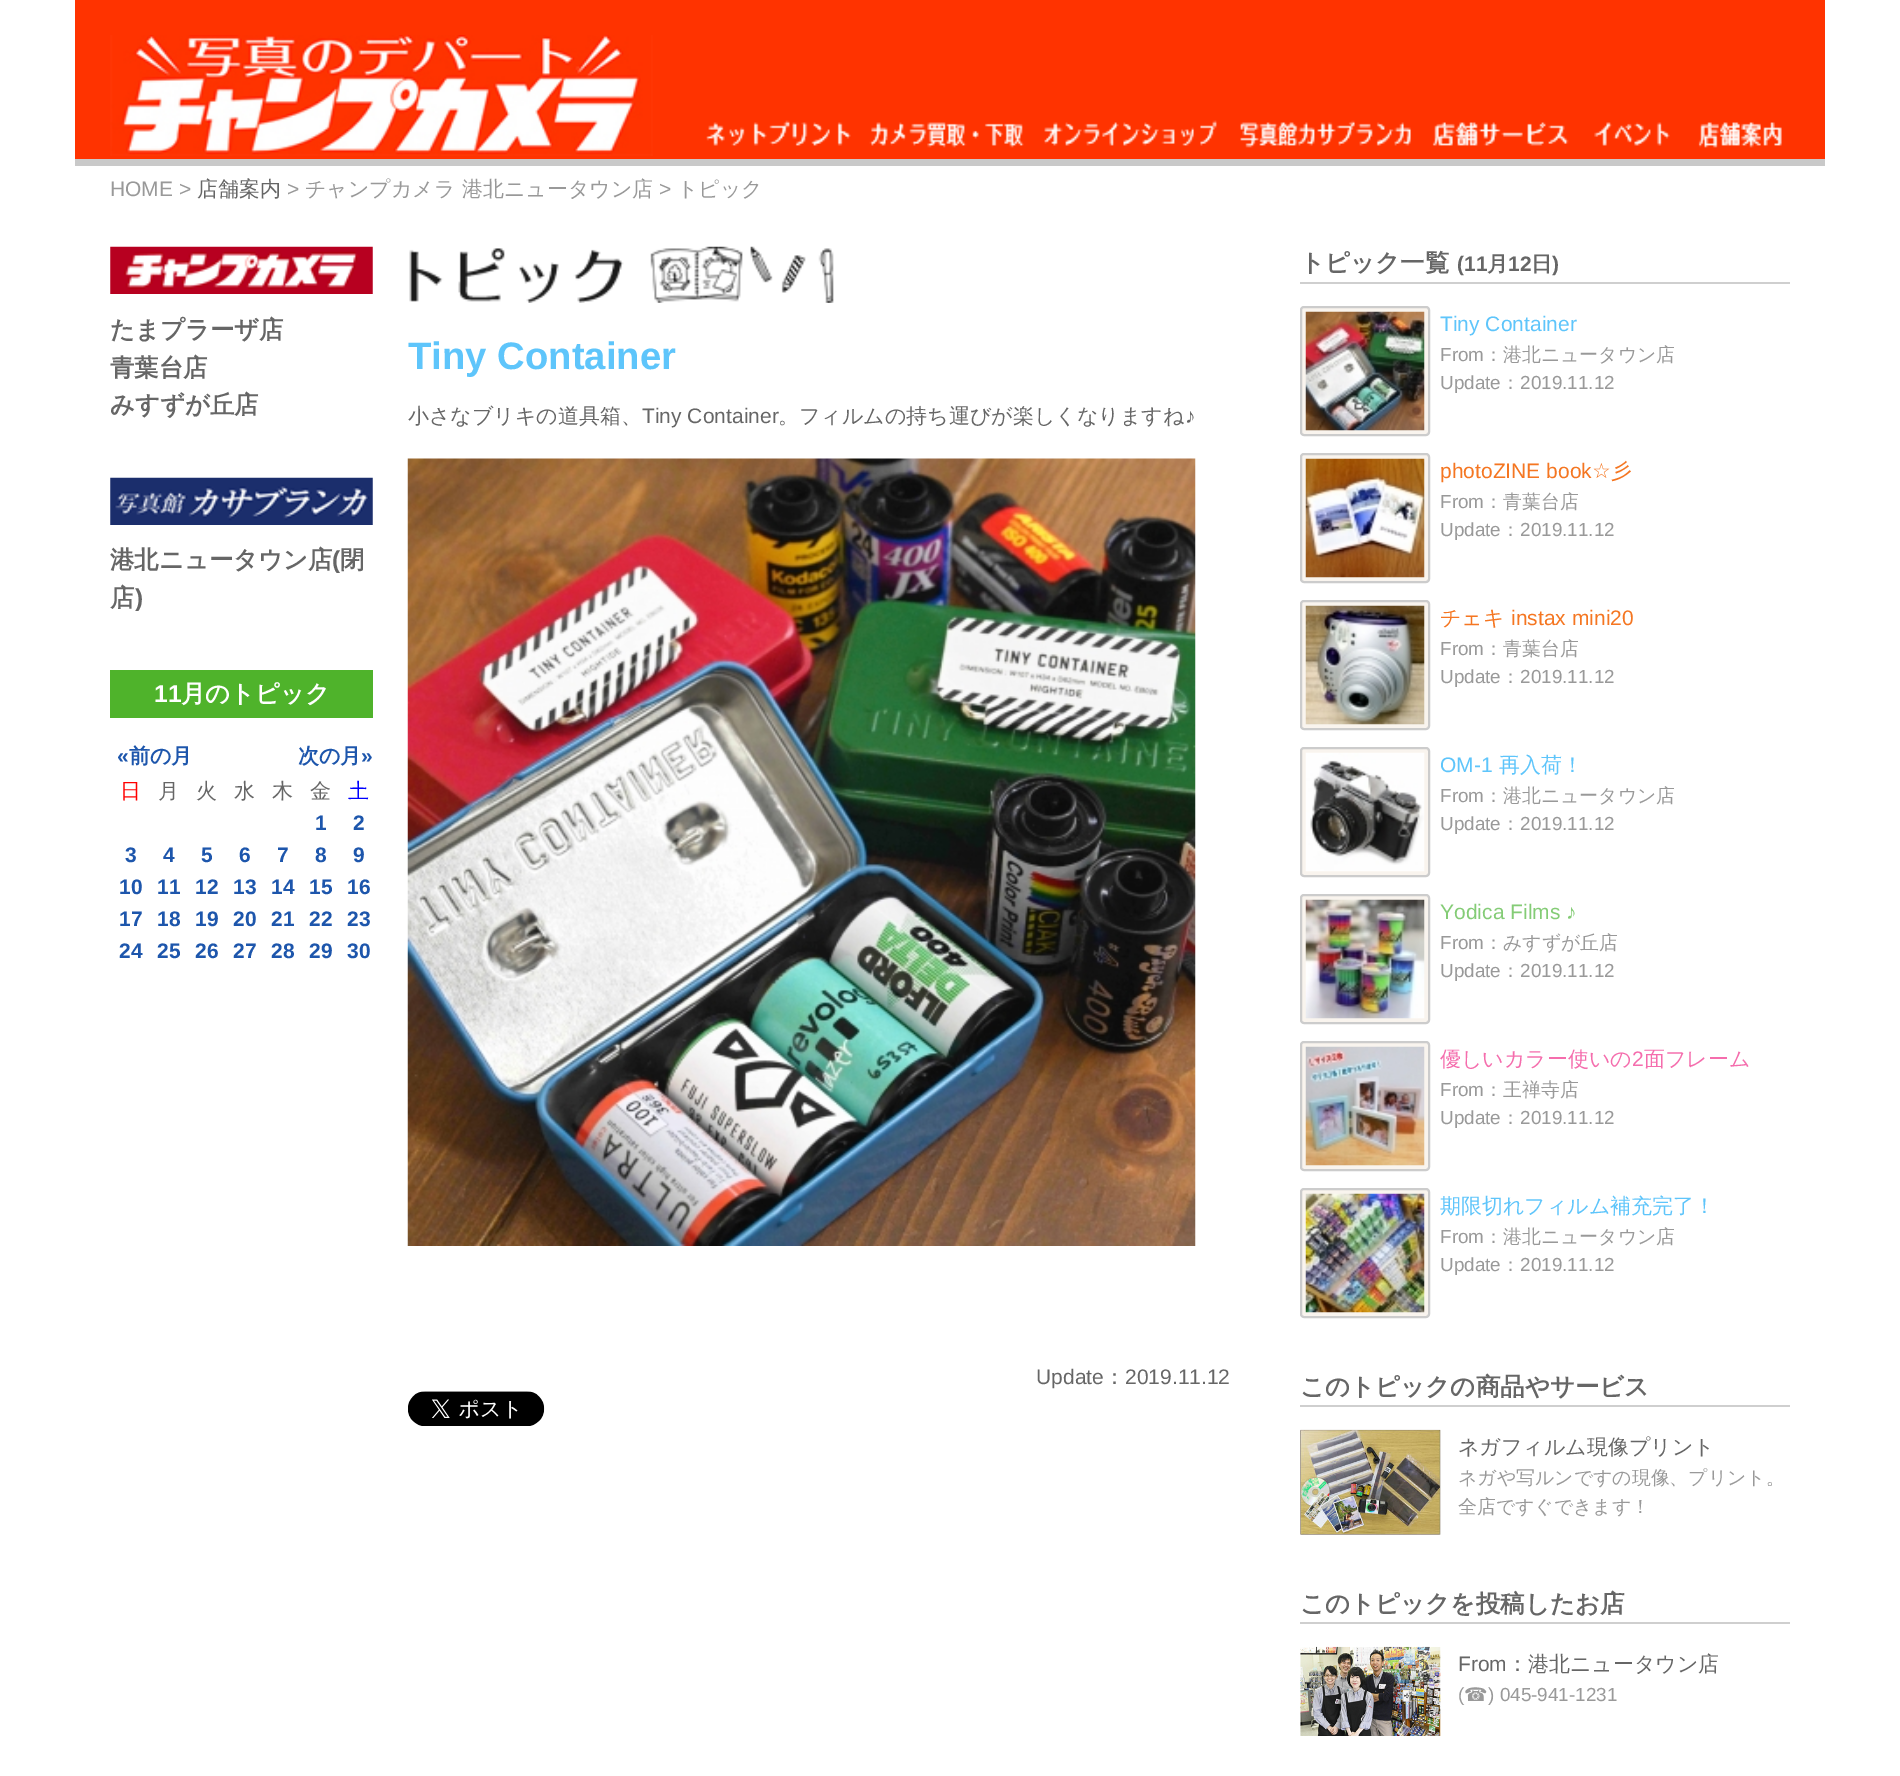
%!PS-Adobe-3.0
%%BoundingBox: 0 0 1900 1776
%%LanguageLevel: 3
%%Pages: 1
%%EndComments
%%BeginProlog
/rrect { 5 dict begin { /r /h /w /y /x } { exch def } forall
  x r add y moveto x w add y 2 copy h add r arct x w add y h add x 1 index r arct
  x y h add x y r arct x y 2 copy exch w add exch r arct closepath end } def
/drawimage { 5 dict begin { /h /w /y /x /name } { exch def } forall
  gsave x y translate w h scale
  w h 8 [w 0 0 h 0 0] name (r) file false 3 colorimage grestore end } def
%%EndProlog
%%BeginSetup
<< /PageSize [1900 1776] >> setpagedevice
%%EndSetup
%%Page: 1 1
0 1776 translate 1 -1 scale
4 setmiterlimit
1 setgray
0 0 1900 1776 rectfill
1 0.2 0 setrgbcolor
75 0 1750 159 rectfill
0.788 setgray
75 159 1750 7 rectfill
(images/1.raw) 110 35 543 121 drawimage
(images/2.raw) 706 120 145 26 drawimage
(images/3.raw) 869 122 155 26 drawimage
(images/4.raw) 1044 120 173 26 drawimage
(images/5.raw) 1240 120 171 28 drawimage
(images/6.raw) 1432 122 137 24 drawimage
(images/7.raw) 1594 122 76 24 drawimage
(images/8.raw) 1698 122 84 26 drawimage
(images/9.raw) 110 246 263 48 drawimage
(images/10.raw) 110 477 263 48 drawimage
0.31 0.702 0.169 setrgbcolor
110 670 263 48 rectfill
(images/11.raw) 409 246 425 57 drawimage
(images/12.raw) 407 458 789 788 drawimage
(images/13.raw) 408 1391 137 35 drawimage
0.812 setgray
1300 282 490 2 rectfill
0.976 0.957 0.933 setrgbcolor
1301 307 128 128 3 rrect gsave fill grestore
0.8 setgray
2 setlinewidth
stroke
(images/14.raw) 1305 311 120 120 drawimage
0.976 0.957 0.933 setrgbcolor
1301 454 128 128 3 rrect gsave fill grestore
0.8 setgray
stroke
(images/15.raw) 1305 458 120 120 drawimage
0.976 0.957 0.933 setrgbcolor
1301 601 128 128 3 rrect gsave fill grestore
0.8 setgray
stroke
(images/16.raw) 1305 605 120 120 drawimage
0.976 0.957 0.933 setrgbcolor
1301 748 128 128 3 rrect gsave fill grestore
0.8 setgray
stroke
(images/17.raw) 1305 752 120 120 drawimage
0.976 0.957 0.933 setrgbcolor
1301 895 128 128 3 rrect gsave fill grestore
0.8 setgray
stroke
(images/18.raw) 1305 899 120 120 drawimage
0.976 0.957 0.933 setrgbcolor
1301 1042 128 128 3 rrect gsave fill grestore
0.8 setgray
stroke
(images/19.raw) 1305 1046 120 120 drawimage
0.976 0.957 0.933 setrgbcolor
1301 1189 128 128 3 rrect gsave fill grestore
0.8 setgray
stroke
(images/20.raw) 1305 1193 120 120 drawimage
0.812 setgray
1300 1405 490 2 rectfill
(images/21.raw) 1300 1429 141 106 drawimage
1300 1622 490 2 rectfill
(images/22.raw) 1300 1646 141 90 drawimage
/LiberationSans-Regular [21 0 0 -21 0 0] selectfont
0.6 setgray
110 196 moveto (HOME >) show
/WenQuanYiZenHei-Medium [21 0 0 -21 0 0] selectfont
0.4 setgray
197 196 moveto (店舗案内) show
/LiberationSans-Regular [21 0 0 -21 0 0] selectfont
0.6 setgray
287 196 moveto (>) show
/WenQuanYiZenHei-Medium [21 0 0 -21 0 0] selectfont
305 196 moveto (チャンプカメラ 港北ニュータウン店) show
/LiberationSans-Regular [21 0 0 -21 0 0] selectfont
659 196 moveto (>) show
/WenQuanYiZenHei-Medium [21 0 0 -21 0 0] selectfont
677 196 moveto (トピック) show
/WenQuanYiZenHei-Bold [24.4 0 0 -24.4 0 0] selectfont
0.4 setgray
110 338 moveto (たまプラーザ店) show
110 376 moveto (青葉台店) show
110 413 moveto (みすずが丘店) show
110 568 moveto (港北ニュータウン店) show
/LiberationSans-Bold [24.4 0 0 -24.4 0 0] selectfont
332 568 moveto (\() show
/WenQuanYiZenHei-Bold [24.4 0 0 -24.4 0 0] selectfont
340 568 moveto (閉) show
110 606 moveto (店) show
/LiberationSans-Bold [24.4 0 0 -24.4 0 0] selectfont
135 606 moveto (\)) show
1 setgray
154 702 moveto (11) show
/WenQuanYiZenHei-Bold [24.4 0 0 -24.4 0 0] selectfont
181 702 moveto (月のトピック) show
/LiberationSans-Bold [21 0 0 -21 0 0] selectfont
0.114 0.337 0.675 setrgbcolor
117 763 moveto («) show
/WenQuanYiZenHei-Bold [21 0 0 -21 0 0] selectfont
129 763 moveto (前の月) show
298 763 moveto (次の月) show
/LiberationSans-Bold [21 0 0 -21 0 0] selectfont
361 763 moveto (») show
/WenQuanYiZenHei-Medium [21 0 0 -21 0 0] selectfont
1 0 0 setrgbcolor
120 798 moveto (日) show
0.4 setgray
158 798 moveto (月) show
196 798 moveto (火) show
234 798 moveto (水) show
272 798 moveto (木) show
310 798 moveto (金) show
0 0 1 setrgbcolor
348 798 moveto (土) show
/LiberationSans-Bold [21 0 0 -21 0 0] selectfont
0.114 0.337 0.675 setrgbcolor
315 830 moveto (1) show
353 830 moveto (2) show
125 862 moveto (3) show
163 862 moveto (4) show
201 862 moveto (5) show
239 862 moveto (6) show
277 862 moveto (7) show
315 862 moveto (8) show
353 862 moveto (9) show
119 894 moveto (10) show
157 894 moveto (11) show
195 894 moveto (12) show
233 894 moveto (13) show
271 894 moveto (14) show
309 894 moveto (15) show
347 894 moveto (16) show
119 926 moveto (17) show
157 926 moveto (18) show
195 926 moveto (19) show
233 926 moveto (20) show
271 926 moveto (21) show
309 926 moveto (22) show
347 926 moveto (23) show
119 958 moveto (24) show
157 958 moveto (25) show
195 958 moveto (26) show
233 958 moveto (27) show
271 958 moveto (28) show
309 958 moveto (29) show
347 958 moveto (30) show
/LiberationSans-Bold [38.25 0 0 -38.25 0 0] selectfont
0.369 0.773 0.984 setrgbcolor
408 369 moveto (Tiny Container) show
/WenQuanYiZenHei-Medium [21 0 0 -21 0 0] selectfont
0.4 setgray
408 423 moveto (小さなブリキの道具箱、) show
/LiberationSans-Regular [21 0 0 -21 0 0] selectfont
642 423 moveto (Tiny Container) show
/WenQuanYiZenHei-Medium [21 0 0 -21 0 0] selectfont
778 423 moveto (。フィルムの持ち運びが楽しくなりますね) show
/LiberationSans-Regular [21 0 0 -21 0 0] selectfont
1185 423 moveto (♪) show
1036 1384 moveto (Update) show
/WenQuanYiZenHei-Medium [21 0 0 -21 0 0] selectfont
1104 1384 moveto (：) show
/LiberationSans-Regular [21 0 0 -21 0 0] selectfont
1125 1384 moveto (2019.11.12) show
/WenQuanYiZenHei-Bold [24.5 0 0 -24.5 0 0] selectfont
1300 271 moveto (トピック一覧) show
/LiberationSans-Bold [21 0 0 -21 0 0] selectfont
1457 271 moveto (\(11) show
/WenQuanYiZenHei-Bold [21 0 0 -21 0 0] selectfont
1487 271 moveto (月) show
/LiberationSans-Bold [21 0 0 -21 0 0] selectfont
1508 271 moveto (12) show
/WenQuanYiZenHei-Bold [21 0 0 -21 0 0] selectfont
1531 271 moveto (日) show
/LiberationSans-Bold [21 0 0 -21 0 0] selectfont
1552 271 moveto (\)) show
/LiberationSans-Regular [21 0 0 -21 0 0] selectfont
0.369 0.773 0.984 setrgbcolor
1440 331 moveto (Tiny Container) show
/LiberationSans-Regular [18.9 0 0 -18.9 0 0] selectfont
0.6 setgray
1440 361 moveto (From) show
/WenQuanYiZenHei-Medium [18.9 0 0 -18.9 0 0] selectfont
1484 361 moveto (：港北ニュータウン店) show
/LiberationSans-Regular [18.9 0 0 -18.9 0 0] selectfont
1440 389 moveto (Update) show
/WenQuanYiZenHei-Medium [18.9 0 0 -18.9 0 0] selectfont
1501 389 moveto (：) show
/LiberationSans-Regular [18.9 0 0 -18.9 0 0] selectfont
1520 389 moveto (2019.11.12) show
/LiberationSans-Regular [21 0 0 -21 0 0] selectfont
0.961 0.463 0.129 setrgbcolor
1440 478 moveto (photoZINE book) show
/DejaVuSans-Regular [21 0 0 -21 0 0] selectfont
1592 478 moveto (☆) show
/WenQuanYiZenHei-Medium [21 0 0 -21 0 0] selectfont
1611 478 moveto (彡) show
/LiberationSans-Regular [18.9 0 0 -18.9 0 0] selectfont
0.6 setgray
1440 508 moveto (From) show
/WenQuanYiZenHei-Medium [18.9 0 0 -18.9 0 0] selectfont
1484 508 moveto (：青葉台店) show
/LiberationSans-Regular [18.9 0 0 -18.9 0 0] selectfont
1440 536 moveto (Update) show
/WenQuanYiZenHei-Medium [18.9 0 0 -18.9 0 0] selectfont
1501 536 moveto (：) show
/LiberationSans-Regular [18.9 0 0 -18.9 0 0] selectfont
1520 536 moveto (2019.11.12) show
/WenQuanYiZenHei-Medium [21 0 0 -21 0 0] selectfont
0.961 0.463 0.129 setrgbcolor
1440 625 moveto (チェキ) show
/LiberationSans-Regular [21 0 0 -21 0 0] selectfont
1511 625 moveto (instax mini20) show
/LiberationSans-Regular [18.9 0 0 -18.9 0 0] selectfont
0.6 setgray
1440 655 moveto (From) show
/WenQuanYiZenHei-Medium [18.9 0 0 -18.9 0 0] selectfont
1484 655 moveto (：青葉台店) show
/LiberationSans-Regular [18.9 0 0 -18.9 0 0] selectfont
1440 683 moveto (Update) show
/WenQuanYiZenHei-Medium [18.9 0 0 -18.9 0 0] selectfont
1501 683 moveto (：) show
/LiberationSans-Regular [18.9 0 0 -18.9 0 0] selectfont
1520 683 moveto (2019.11.12) show
/LiberationSans-Regular [21 0 0 -21 0 0] selectfont
0.369 0.773 0.984 setrgbcolor
1440 772 moveto (OM-1) show
/WenQuanYiZenHei-Medium [21 0 0 -21 0 0] selectfont
1499 772 moveto (再入荷！) show
/LiberationSans-Regular [18.9 0 0 -18.9 0 0] selectfont
0.6 setgray
1440 802 moveto (From) show
/WenQuanYiZenHei-Medium [18.9 0 0 -18.9 0 0] selectfont
1484 802 moveto (：港北ニュータウン店) show
/LiberationSans-Regular [18.9 0 0 -18.9 0 0] selectfont
1440 830 moveto (Update) show
/WenQuanYiZenHei-Medium [18.9 0 0 -18.9 0 0] selectfont
1501 830 moveto (：) show
/LiberationSans-Regular [18.9 0 0 -18.9 0 0] selectfont
1520 830 moveto (2019.11.12) show
/LiberationSans-Regular [21 0 0 -21 0 0] selectfont
0.518 0.8 0.463 setrgbcolor
1440 919 moveto (Yodica Films ♪) show
/LiberationSans-Regular [18.9 0 0 -18.9 0 0] selectfont
0.6 setgray
1440 949 moveto (From) show
/WenQuanYiZenHei-Medium [18.9 0 0 -18.9 0 0] selectfont
1484 949 moveto (：みすずが丘店) show
/LiberationSans-Regular [18.9 0 0 -18.9 0 0] selectfont
1440 977 moveto (Update) show
/WenQuanYiZenHei-Medium [18.9 0 0 -18.9 0 0] selectfont
1501 977 moveto (：) show
/LiberationSans-Regular [18.9 0 0 -18.9 0 0] selectfont
1520 977 moveto (2019.11.12) show
/WenQuanYiZenHei-Medium [21 0 0 -21 0 0] selectfont
0.961 0.427 0.678 setrgbcolor
1440 1066 moveto (優しいカラー使いの) show
/LiberationSans-Regular [21 0 0 -21 0 0] selectfont
1632 1066 moveto (2) show
/WenQuanYiZenHei-Medium [21 0 0 -21 0 0] selectfont
1644 1066 moveto (面フレーム) show
/LiberationSans-Regular [18.9 0 0 -18.9 0 0] selectfont
0.6 setgray
1440 1096 moveto (From) show
/WenQuanYiZenHei-Medium [18.9 0 0 -18.9 0 0] selectfont
1484 1096 moveto (：王禅寺店) show
/LiberationSans-Regular [18.9 0 0 -18.9 0 0] selectfont
1440 1124 moveto (Update) show
/WenQuanYiZenHei-Medium [18.9 0 0 -18.9 0 0] selectfont
1501 1124 moveto (：) show
/LiberationSans-Regular [18.9 0 0 -18.9 0 0] selectfont
1520 1124 moveto (2019.11.12) show
/WenQuanYiZenHei-Medium [21 0 0 -21 0 0] selectfont
0.369 0.773 0.984 setrgbcolor
1440 1213 moveto (期限切れフィルム補充完了！) show
/LiberationSans-Regular [18.9 0 0 -18.9 0 0] selectfont
0.6 setgray
1440 1243 moveto (From) show
/WenQuanYiZenHei-Medium [18.9 0 0 -18.9 0 0] selectfont
1484 1243 moveto (：港北ニュータウン店) show
/LiberationSans-Regular [18.9 0 0 -18.9 0 0] selectfont
1440 1271 moveto (Update) show
/WenQuanYiZenHei-Medium [18.9 0 0 -18.9 0 0] selectfont
1501 1271 moveto (：) show
/LiberationSans-Regular [18.9 0 0 -18.9 0 0] selectfont
1520 1271 moveto (2019.11.12) show
/WenQuanYiZenHei-Bold [24.5 0 0 -24.5 0 0] selectfont
0.4 setgray
1300 1395 moveto (このトピックの商品やサービス) show
/WenQuanYiZenHei-Medium [21 0 0 -21 0 0] selectfont
1458 1454 moveto (ネガフィルム現像プリント) show
/WenQuanYiZenHei-Medium [18.9 0 0 -18.9 0 0] selectfont
0.6 setgray
1458 1484 moveto (ネガや写ルンですの現像、プリント。) show
1458 1513 moveto (全店ですぐできます！) show
/WenQuanYiZenHei-Bold [24.5 0 0 -24.5 0 0] selectfont
0.4 setgray
1300 1612 moveto (このトピックを投稿したお店) show
/LiberationSans-Regular [21 0 0 -21 0 0] selectfont
1458 1671 moveto (From) show
/WenQuanYiZenHei-Medium [21 0 0 -21 0 0] selectfont
1507 1671 moveto (：港北ニュータウン店) show
/LiberationSans-Regular [18.9 0 0 -18.9 0 0] selectfont
0.6 setgray
1458 1701 moveto (\() show
/DejaVuSans-Regular [18.9 0 0 -18.9 0 0] selectfont
1464 1701 moveto (☎) show
/LiberationSans-Regular [18.9 0 0 -18.9 0 0] selectfont
1488 1701 moveto (\) 045-941-1231) show
showpage
%%EOF
